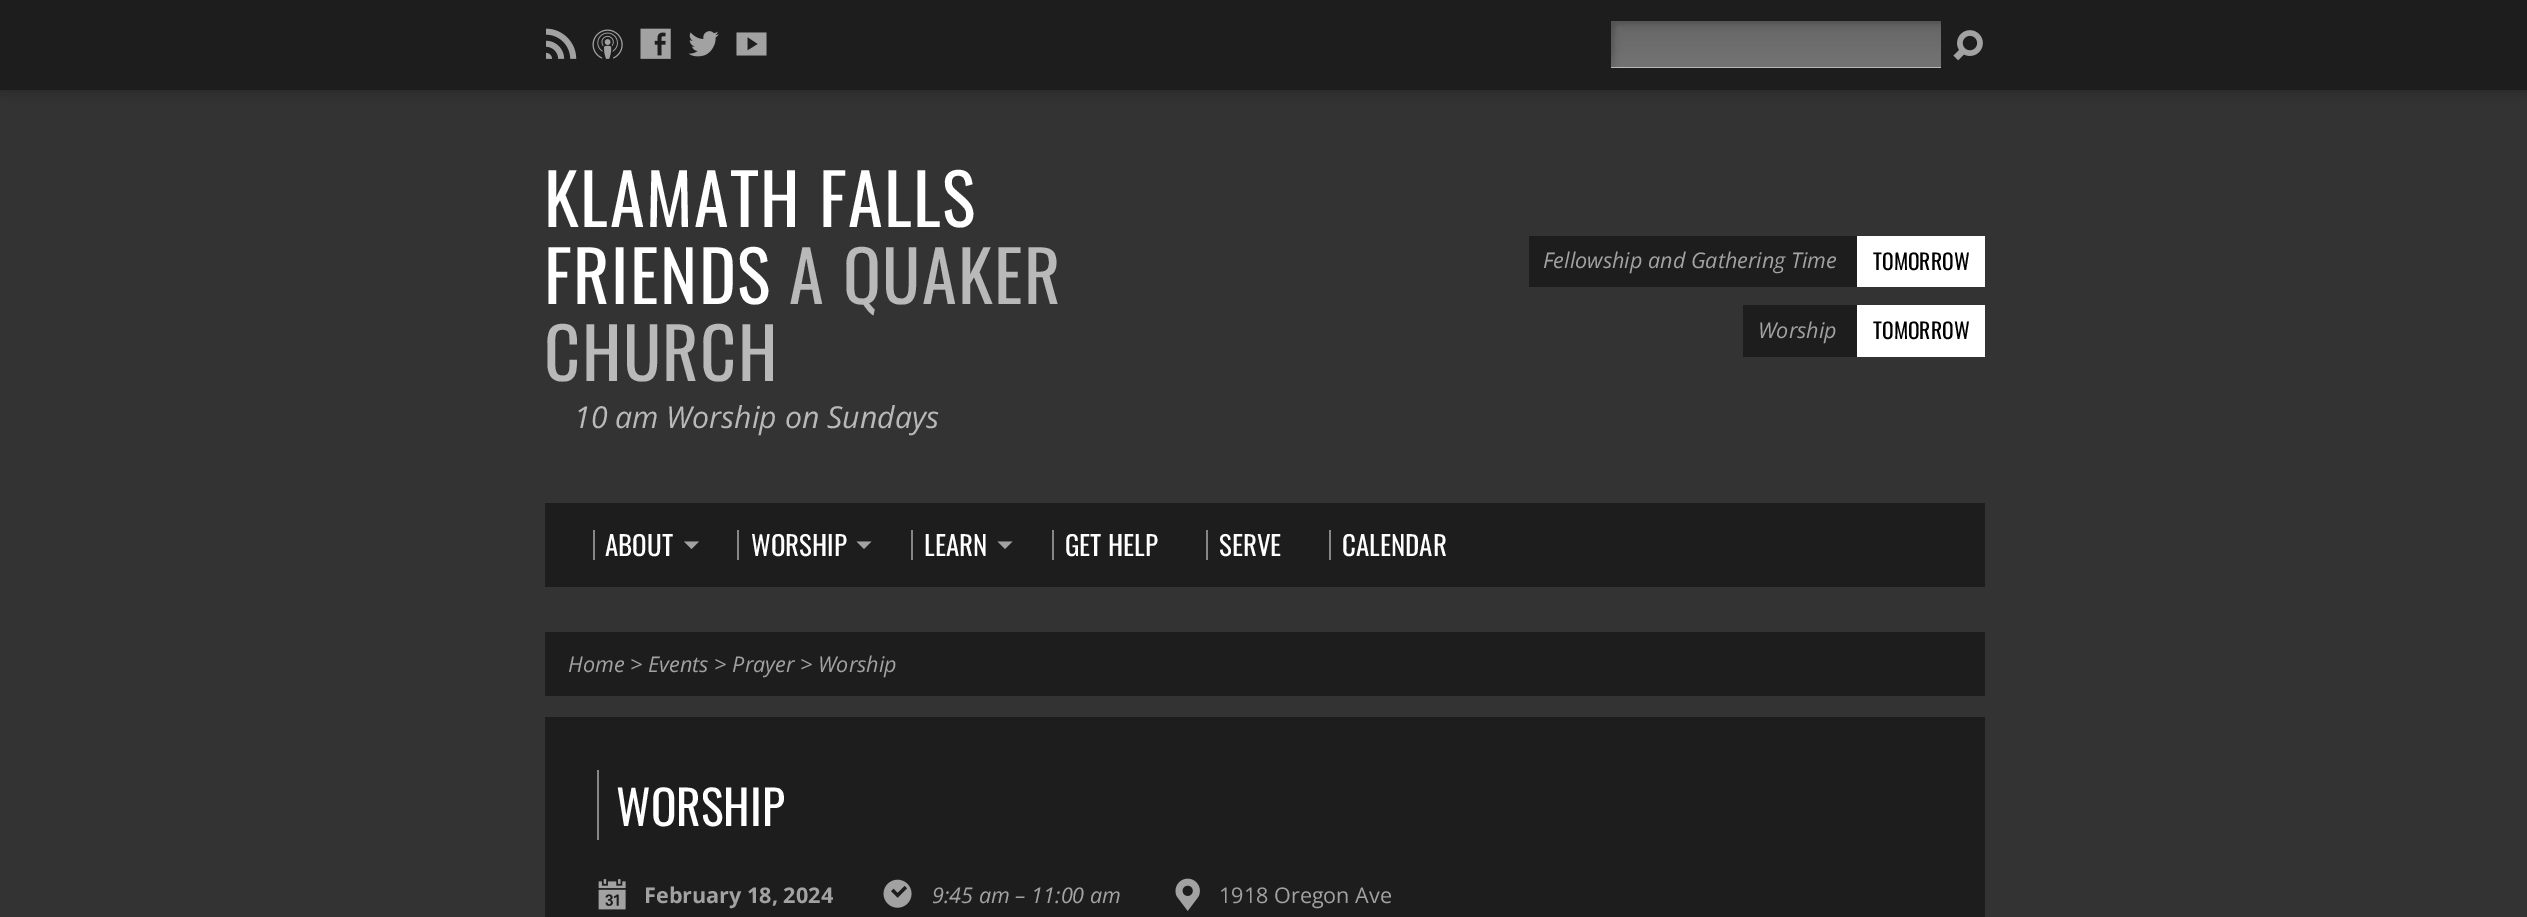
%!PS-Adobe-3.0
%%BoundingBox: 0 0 2527 917
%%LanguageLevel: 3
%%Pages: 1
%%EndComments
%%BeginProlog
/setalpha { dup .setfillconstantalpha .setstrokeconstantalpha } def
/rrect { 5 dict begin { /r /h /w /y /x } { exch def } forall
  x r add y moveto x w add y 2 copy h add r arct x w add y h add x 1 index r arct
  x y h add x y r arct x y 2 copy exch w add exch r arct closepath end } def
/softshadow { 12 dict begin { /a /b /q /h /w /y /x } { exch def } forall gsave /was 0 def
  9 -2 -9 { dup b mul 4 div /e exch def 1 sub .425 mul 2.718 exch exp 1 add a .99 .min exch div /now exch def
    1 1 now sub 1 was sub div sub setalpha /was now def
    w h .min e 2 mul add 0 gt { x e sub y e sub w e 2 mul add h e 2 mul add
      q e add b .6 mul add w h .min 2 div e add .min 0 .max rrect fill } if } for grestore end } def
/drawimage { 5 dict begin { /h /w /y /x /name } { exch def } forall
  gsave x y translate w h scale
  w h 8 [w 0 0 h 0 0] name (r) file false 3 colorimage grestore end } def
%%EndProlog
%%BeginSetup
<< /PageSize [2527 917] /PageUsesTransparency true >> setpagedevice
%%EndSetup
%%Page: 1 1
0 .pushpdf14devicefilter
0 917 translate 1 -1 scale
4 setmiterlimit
0.2 setgray
0 0 2527 917 rectfill
0 setgray
0 0 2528 90 0 7.5 0.25 softshadow
0.114 setgray
0 0 2527 90 rectfill
(images/1.raw) 546 28 31 31 drawimage
(images/2.raw) 592 29 31 30 drawimage
(images/3.raw) 640 28 31 31 drawimage
(images/4.raw) 688 31 31 26 drawimage
0.635 setgray
newpath 766.5 55.5 moveto 736.5 55.5 lineto 736.5 32.5 lineto 766.5 32.5 lineto closepath 747.5 50.5 moveto 758 44 lineto 747.5 37 lineto closepath fill
1 setgray
1611 67 330 1 rectfill
(images/5.raw) 1611 21 330 47 drawimage
(images/6.raw) 1953 30 30 31 drawimage
0.94 setalpha
0.11 setgray
1529 236 328 51 rectfill
1 setalpha
1 setgray
1857 236 128 51 rectfill
0.94 setalpha
0.11 setgray
1743 305 114 52 rectfill
1 setalpha
1 setgray
1857 305 128 52 rectfill
0.94 setalpha
0.11 setgray
545 503 1440 84 rectfill
1 setalpha
0.525 setgray
593 530 2 30 rectfill
0.635 setgray
newpath 684 541.5 moveto 699 541.5 lineto 691.5 549 lineto closepath fill
0.525 setgray
737 530 2 30 rectfill
0.635 setgray
newpath 856.5 541.5 moveto 871.5 541.5 lineto 864 549 lineto closepath fill
0.525 setgray
911 530 2 30 rectfill
0.635 setgray
newpath 997.5 541.5 moveto 1012.5 541.5 lineto 1005 549 lineto closepath fill
0.525 setgray
1052 530 2 30 rectfill
1206 530 2 30 rectfill
1329 530 2 30 rectfill
0.94 setalpha
0.11 setgray
545 632 1440 64 rectfill
545 717 1440 200 rectfill
1 setalpha
0.525 setgray
597 770 2 70 rectfill
(images/7.raw) 598 879 28 31 drawimage
(images/8.raw) 883 879 29 29 drawimage
(images/9.raw) 1175 878 25 33 drawimage
/Oswald-Regular [70.25 0 0 -70.25 0 0] selectfont
1 setgray
544 227 moveto 1.5 0 (KLAMATH FALLS) ashow
544 304 moveto 1.5 0 (FRIENDS) ashow
0.725 setgray
789 304 moveto 1.5 0 (A QUAKER) ashow
544 381 moveto 1.5 0 (CHURCH) ashow
/OpenSans-Italic [30.25 0 0 -30.25 0 0] selectfont
574 428 moveto (10 am Worship on Sundays) show
/OpenSans-Italic [21.6 0 0 -21.6 0 0] selectfont
0.635 setgray
1543 268 moveto (Fellowship and Gathering Time) show
/Oswald-Regular [21.6 0 0 -21.6 0 0] selectfont
0 setgray
1873 270 moveto (TOMORROW) show
/OpenSans-Italic [21.6 0 0 -21.6 0 0] selectfont
0.635 setgray
1758 338 moveto (Worship) show
/Oswald-Regular [21.6 0 0 -21.6 0 0] selectfont
0 setgray
1873 339 moveto (TOMORROW) show
/Oswald-Regular [27 0 0 -27 0 0] selectfont
1 setgray
605 556 moveto (ABOUT) show
751 556 moveto (WORSHIP) show
924 556 moveto (LEARN) show
1065 556 moveto (GET HELP) show
1219 556 moveto (SERVE) show
1342 556 moveto (CALENDAR) show
/OpenSans-Italic [21.6 0 0 -21.6 0 0] selectfont
0.635 setgray
568 672 moveto (Home > Events > Prayer > Worship) show
/Oswald-Regular [47.5 0 0 -47.5 0 0] selectfont
1 setgray
616 826 moveto (WORSHIP) show
/OpenSans-Bold [21.6 0 0 -21.6 0 0] selectfont
0.635 setgray
644 903 moveto (February 18, 2024) show
/OpenSans-Italic [21.6 0 0 -21.6 0 0] selectfont
932 903 moveto (9:45 am – 11:00 am) show
/OpenSans-Regular [21.6 0 0 -21.6 0 0] selectfont
1219 903 moveto (1918 Oregon Ave) show
.poppdf14devicefilter showpage
%%EOF
